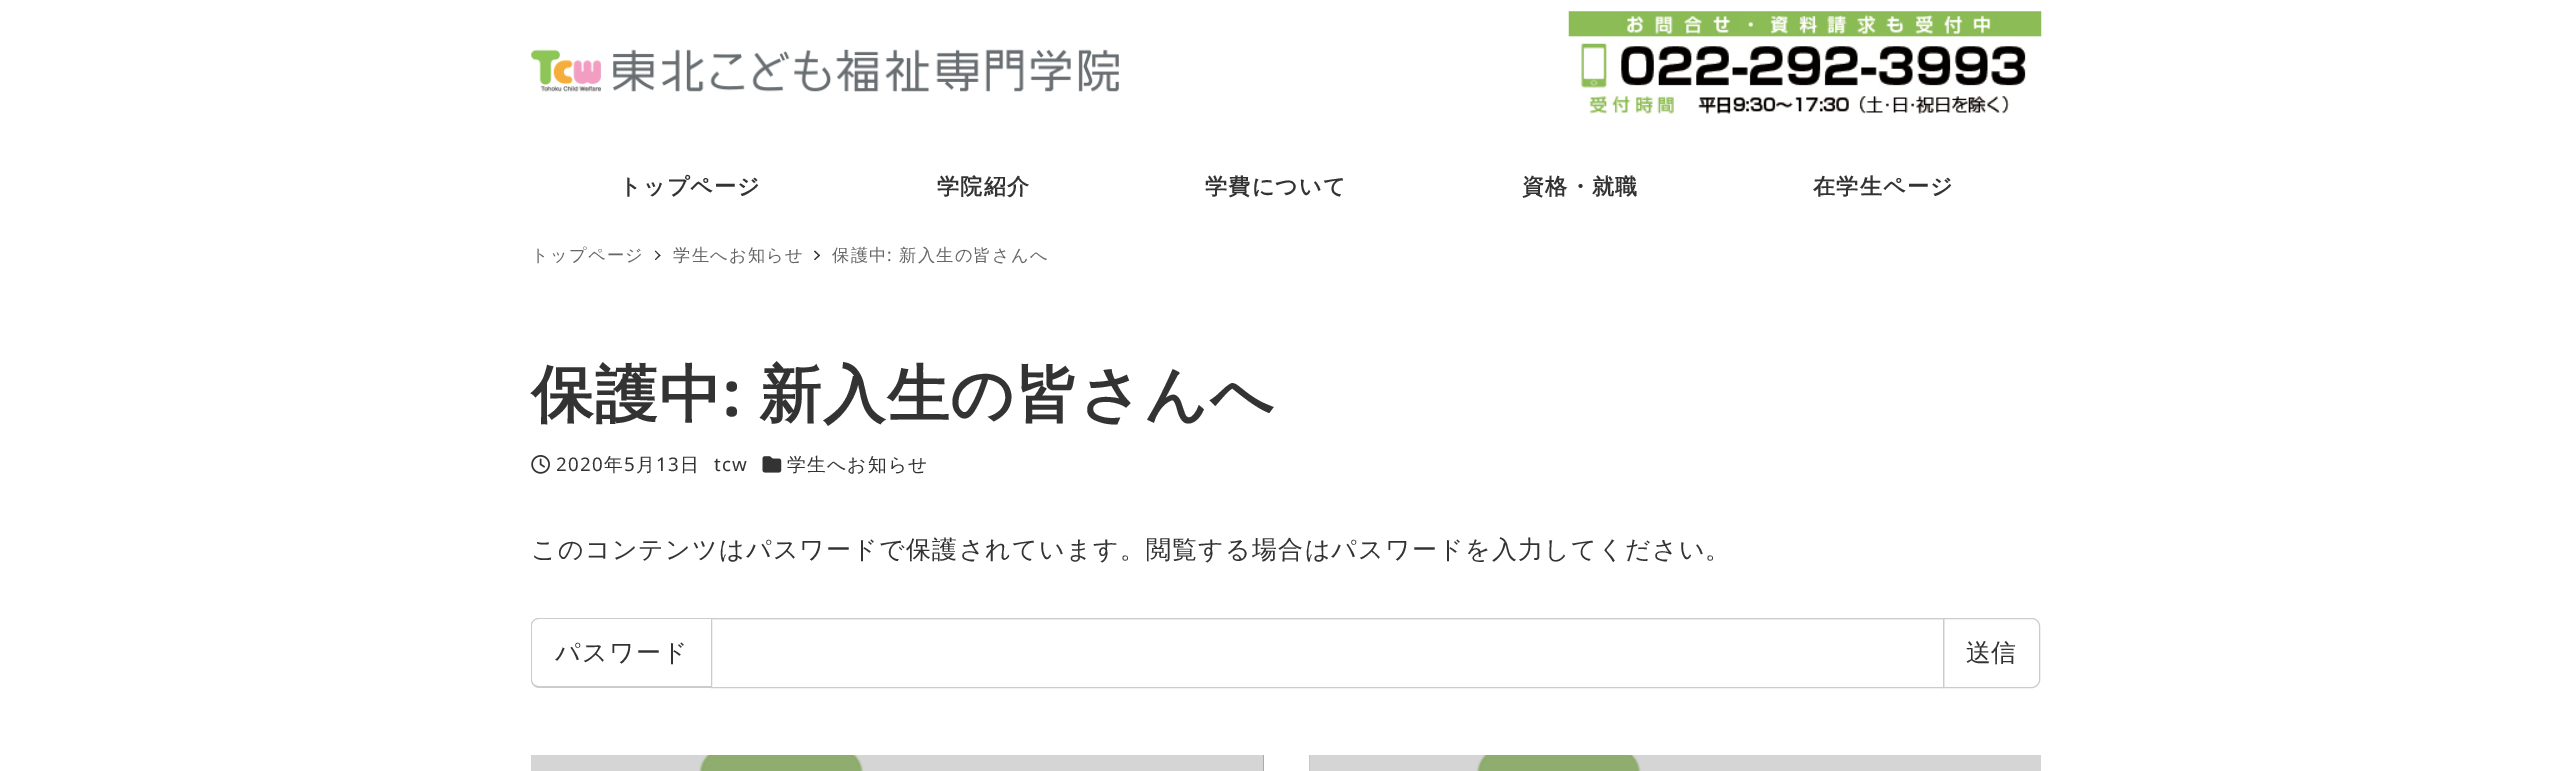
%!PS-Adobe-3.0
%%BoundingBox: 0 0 2572 771
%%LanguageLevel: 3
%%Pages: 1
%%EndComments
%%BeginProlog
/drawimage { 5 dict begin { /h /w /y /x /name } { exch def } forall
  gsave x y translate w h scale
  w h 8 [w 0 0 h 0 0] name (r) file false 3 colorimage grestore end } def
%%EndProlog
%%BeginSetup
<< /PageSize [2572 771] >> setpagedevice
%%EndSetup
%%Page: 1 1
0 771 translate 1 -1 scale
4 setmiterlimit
1 setgray
0 0 2572 771 rectfill
(images/1.raw) 531 49 588 43 drawimage
(images/2.raw) 1568 11 474 103 drawimage
0.2 setgray
newpath 655.5 250.5 moveto 660.5 255.5 lineto 659.5 256 lineto 655 251.5 lineto closepath fill
newpath 659.5 254.5 moveto 660.5 255.5 lineto 655.5 260 lineto 655 259.5 lineto closepath fill
newpath 815 250.5 moveto 820 255.5 lineto 819 256 lineto 814 251.5 lineto closepath fill
newpath 819 254.5 moveto 820 255.5 lineto 815 260 lineto 814 259.5 lineto closepath fill
(images/3.raw) 531 455 19 19 drawimage
(images/4.raw) 762 456 20 17 drawimage
0.8 setgray
newpath 539 618 moveto 711 618 lineto 711 688 lineto 539 688 lineto 535 688 531 684 531 680 curveto 531 625 lineto 531 621 535 618 539 618 curveto closepath 539 619 moveto 711 619 lineto 711 686 lineto 539 686 lineto 535 686 532 683 532 680 curveto 532 625 lineto 532 622 535 619 539 619 curveto closepath eofill
0.965 setgray
713 619 1230 1 rectfill
0.8 setgray
newpath 1943.5 618.5 moveto 2032 618.5 lineto 2036 618.5 2039.5 622 2039.5 626 curveto 2039.5 680 lineto 2039.5 684 2036 687.5 2032 687.5 curveto 1943.5 687.5 lineto closepath stroke
711.5 618.5 1232 69 rectstroke
0.588 setgray
531 755 733 16 rectfill
(images/5.raw) 531 755 733 16 drawimage
1309 755 732 16 rectfill
(images/6.raw) 1309 755 732 16 drawimage
/WenQuanYiZenHei-Bold [22 0 0 -22 0 0] selectfont
0.2 setgray
619 194 moveto 1.25 0 (トップページ) ashow
937 194 moveto 1.25 0 (学院紹介) ashow
1205 194 moveto 1.25 0 (学費について) ashow
1522 194 moveto 1.25 0 (資格・就職) ashow
1813 194 moveto 1.25 0 (在学生ページ) ashow
/WenQuanYiZenHei-Medium [17.25 0 0 -17.25 0 0] selectfont
0.4 setgray
531 261 moveto 1.25 0 (トップページ) ashow
673 261 moveto 1.25 0 (学生へお知らせ) ashow
832 261 moveto 1.25 0 (保護中) ashow
/NotoSans-Regular [17.25 0 0 -17.25 0 0] selectfont
887 261 moveto 1.25 0 (:) ashow
/WenQuanYiZenHei-Medium [17.25 0 0 -17.25 0 0] selectfont
899 261 moveto 1.25 0 (新入生の皆さんへ) ashow
/WenQuanYiZenHei-Bold [62.5 0 0 -62.5 0 0] selectfont
0.2 setgray
531 416 moveto 1.25 0 (保護中) ashow
/NotoSans-Bold [62.5 0 0 -62.5 0 0] selectfont
723 416 moveto 1.25 0 (:) ashow
/WenQuanYiZenHei-Bold [62.5 0 0 -62.5 0 0] selectfont
759 416 moveto 1.25 0 (新入生の皆さんへ) ashow
/NotoSans-Regular [18.75 0 0 -18.75 0 0] selectfont
556 471 moveto 1.25 0 (2020) ashow
/WenQuanYiZenHei-Medium [18.75 0 0 -18.75 0 0] selectfont
604 471 moveto 1.25 0 (年) ashow
/NotoSans-Regular [18.75 0 0 -18.75 0 0] selectfont
624 471 moveto 1.25 0 (5) ashow
/WenQuanYiZenHei-Medium [18.75 0 0 -18.75 0 0] selectfont
636 471 moveto 1.25 0 (月) ashow
/NotoSans-Regular [18.75 0 0 -18.75 0 0] selectfont
656 471 moveto 1.25 0 (13) ashow
/WenQuanYiZenHei-Medium [18.75 0 0 -18.75 0 0] selectfont
680 471 moveto 1.25 0 (日) ashow
/NotoSans-Regular [18.75 0 0 -18.75 0 0] selectfont
714 471 moveto 1.25 0 (tcw) ashow
/WenQuanYiZenHei-Medium [18.75 0 0 -18.75 0 0] selectfont
787 471 moveto 1.25 0 (学生へお知らせ) ashow
/WenQuanYiZenHei-Medium [25 0 0 -25 0 0] selectfont
531 558 moveto 1.25 0 (このコンテンツはパスワードで保護されています。閲覧する場合はパスワードを入力してください。) ashow
555 661 moveto 1.25 0 (パスワード) ashow
1966 661 moveto (送信) show
showpage
%%EOF
